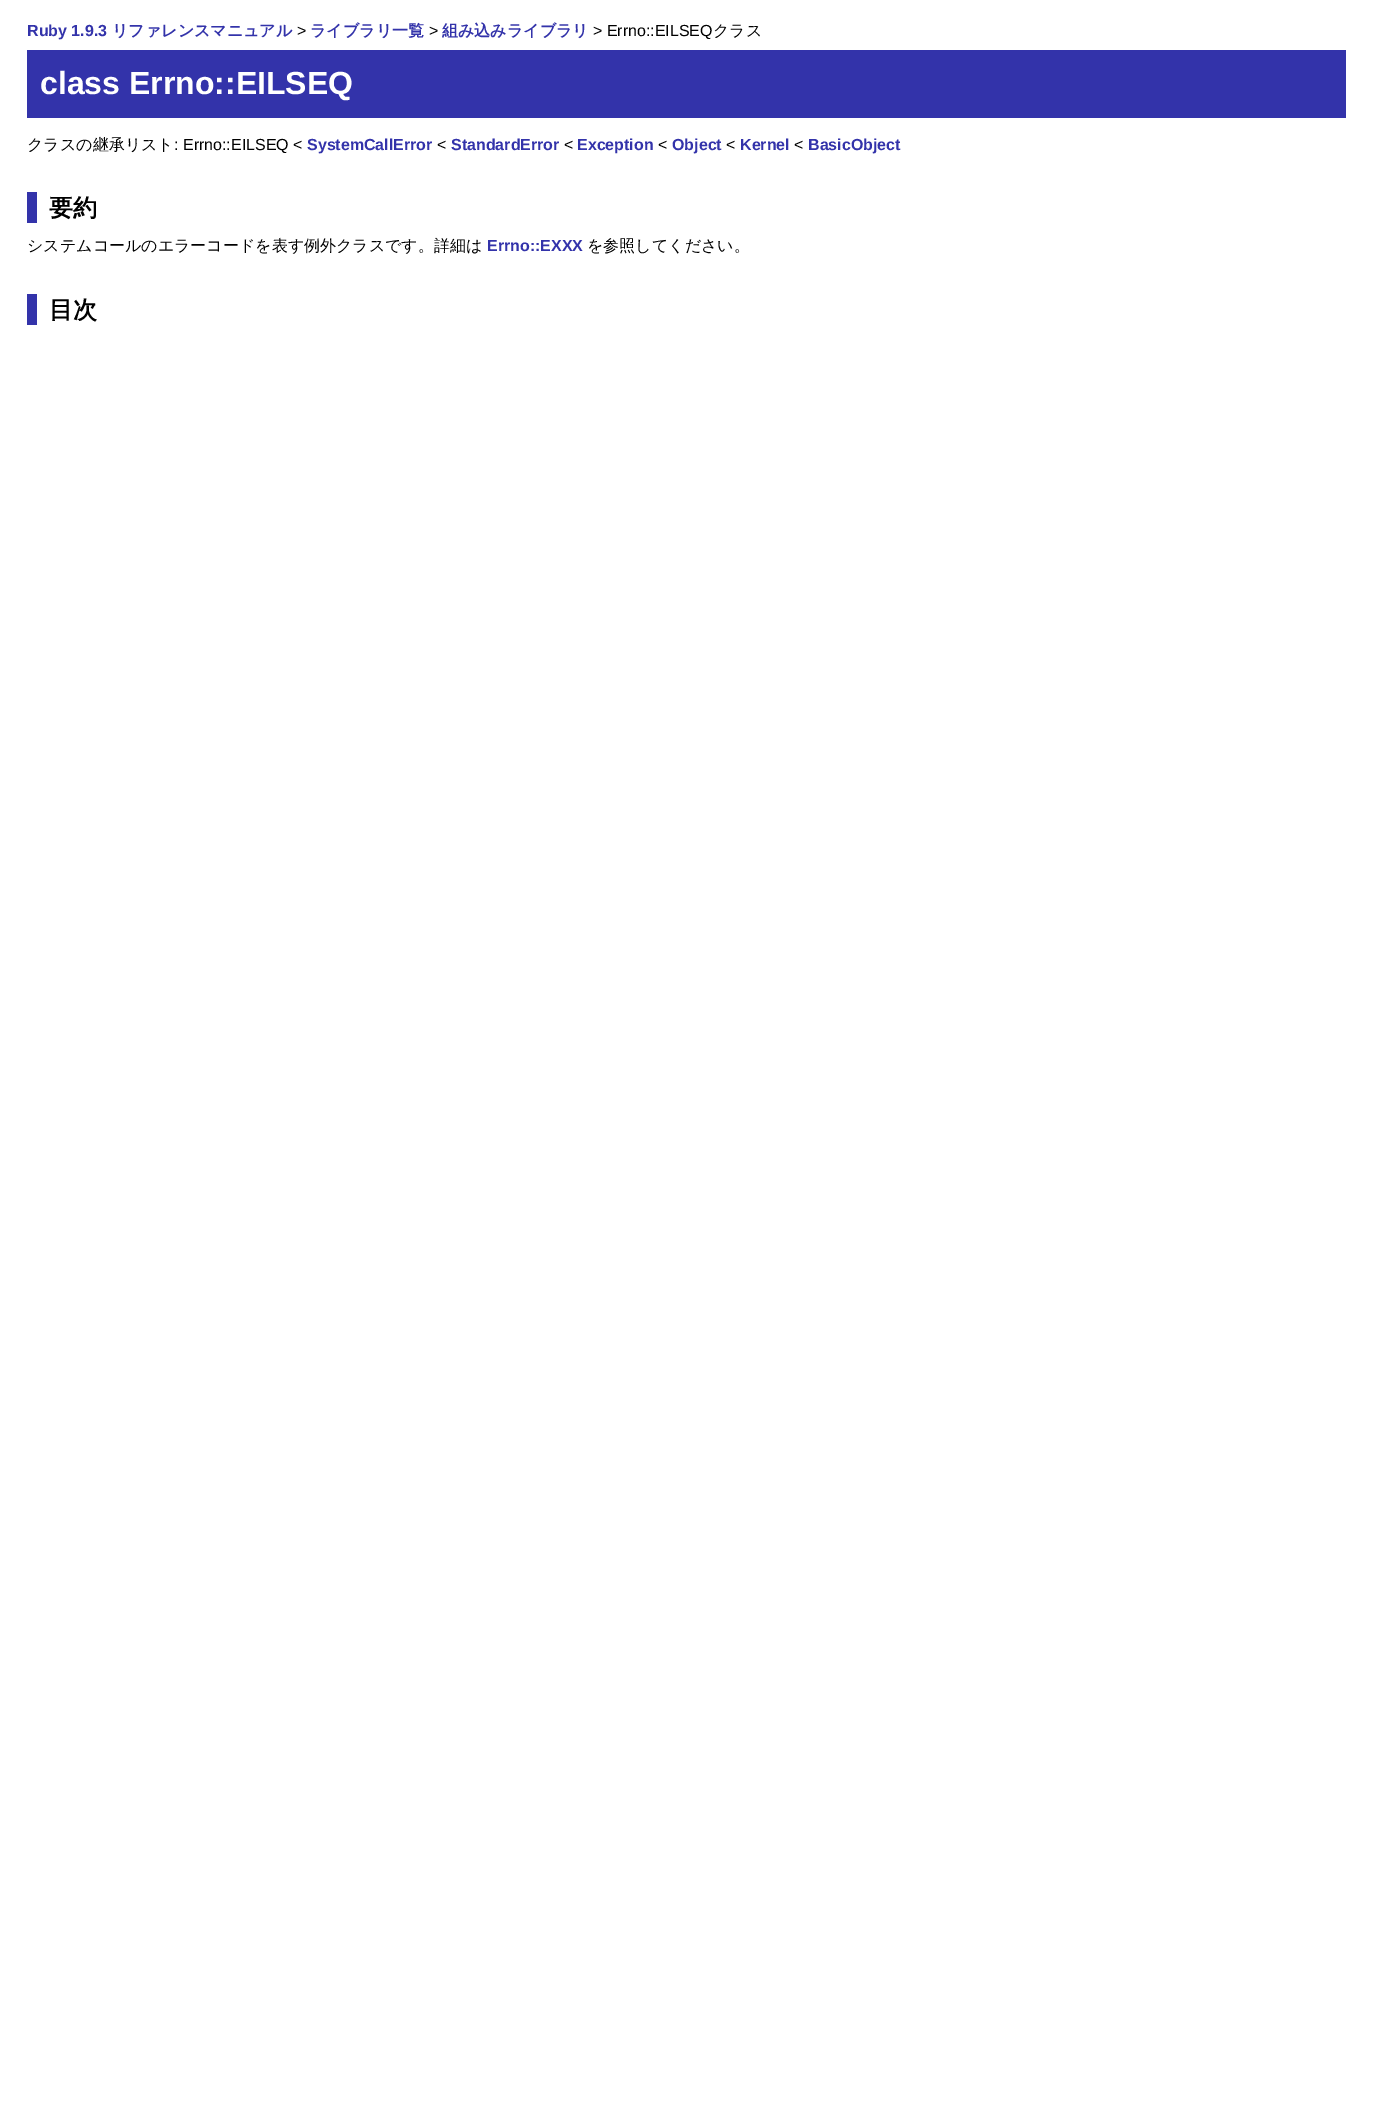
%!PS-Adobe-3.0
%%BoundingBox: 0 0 1373 2113
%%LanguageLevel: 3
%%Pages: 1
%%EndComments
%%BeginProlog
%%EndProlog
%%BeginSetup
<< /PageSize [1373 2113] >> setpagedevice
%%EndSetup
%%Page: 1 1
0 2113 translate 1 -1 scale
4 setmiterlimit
1 setgray
0 0 1373 2113 rectfill
0.2 0.2 0.667 setrgbcolor
27 50 1319 68 rectfill
27 192 10 31 rectfill
27 294 10 31 rectfill
/LiberationSans-Bold [16 0 0 -16 0 0] selectfont
27 36 moveto (Ruby 1.9.3) show
/WenQuanYiZenHei-Bold [16 0 0 -16 0 0] selectfont
112 36 moveto (リファレンスマニュアル) show
/LiberationSans-Regular [16 0 0 -16 0 0] selectfont
0 setgray
297 36 moveto (>) show
/WenQuanYiZenHei-Bold [16 0 0 -16 0 0] selectfont
0.2 0.2 0.667 setrgbcolor
310 36 moveto (ライブラリ一覧) show
/LiberationSans-Regular [16 0 0 -16 0 0] selectfont
0 setgray
429 36 moveto (>) show
/WenQuanYiZenHei-Bold [16 0 0 -16 0 0] selectfont
0.2 0.2 0.667 setrgbcolor
442 36 moveto (組み込みライブラリ) show
/LiberationSans-Regular [16 0 0 -16 0 0] selectfont
0 setgray
593 36 moveto (> Errno::EILSEQ) show
/WenQuanYiZenHei-Medium [16 0 0 -16 0 0] selectfont
713 36 moveto (クラス) show
/LiberationSans-Bold [32 0 0 -32 0 0] selectfont
1 setgray
40 94 moveto (class Errno::EILSEQ) show
/WenQuanYiZenHei-Medium [16 0 0 -16 0 0] selectfont
0 setgray
27 150 moveto (クラスの継承リスト) show
/LiberationSans-Regular [16 0 0 -16 0 0] selectfont
174 150 moveto (: Errno::EILSEQ <) show
/LiberationSans-Bold [16 0 0 -16 0 0] selectfont
0.2 0.2 0.667 setrgbcolor
307 150 moveto (SystemCallError) show
/LiberationSans-Regular [16 0 0 -16 0 0] selectfont
0 setgray
437 150 moveto (<) show
/LiberationSans-Bold [16 0 0 -16 0 0] selectfont
0.2 0.2 0.667 setrgbcolor
451 150 moveto (StandardError) show
/LiberationSans-Regular [16 0 0 -16 0 0] selectfont
0 setgray
564 150 moveto (<) show
/LiberationSans-Bold [16 0 0 -16 0 0] selectfont
0.2 0.2 0.667 setrgbcolor
577 150 moveto (Exception) show
/LiberationSans-Regular [16 0 0 -16 0 0] selectfont
0 setgray
658 150 moveto (<) show
/LiberationSans-Bold [16 0 0 -16 0 0] selectfont
0.2 0.2 0.667 setrgbcolor
672 150 moveto (Object) show
/LiberationSans-Regular [16 0 0 -16 0 0] selectfont
0 setgray
726 150 moveto (<) show
/LiberationSans-Bold [16 0 0 -16 0 0] selectfont
0.2 0.2 0.667 setrgbcolor
740 150 moveto (Kernel) show
/LiberationSans-Regular [16 0 0 -16 0 0] selectfont
0 setgray
794 150 moveto (<) show
/LiberationSans-Bold [16 0 0 -16 0 0] selectfont
0.2 0.2 0.667 setrgbcolor
808 150 moveto (BasicObject) show
/WenQuanYiZenHei-Bold [24 0 0 -24 0 0] selectfont
0 setgray
49 216 moveto (要約) show
/WenQuanYiZenHei-Medium [16 0 0 -16 0 0] selectfont
27 251 moveto (システムコールのエラーコードを表す例外クラスです。詳細は) show
/LiberationSans-Bold [16 0 0 -16 0 0] selectfont
0.2 0.2 0.667 setrgbcolor
487 251 moveto (Errno::EXXX) show
/WenQuanYiZenHei-Medium [16 0 0 -16 0 0] selectfont
0 setgray
587 251 moveto (を参照してください。) show
/WenQuanYiZenHei-Bold [24 0 0 -24 0 0] selectfont
49 318 moveto (目次) show
showpage
%%EOF
